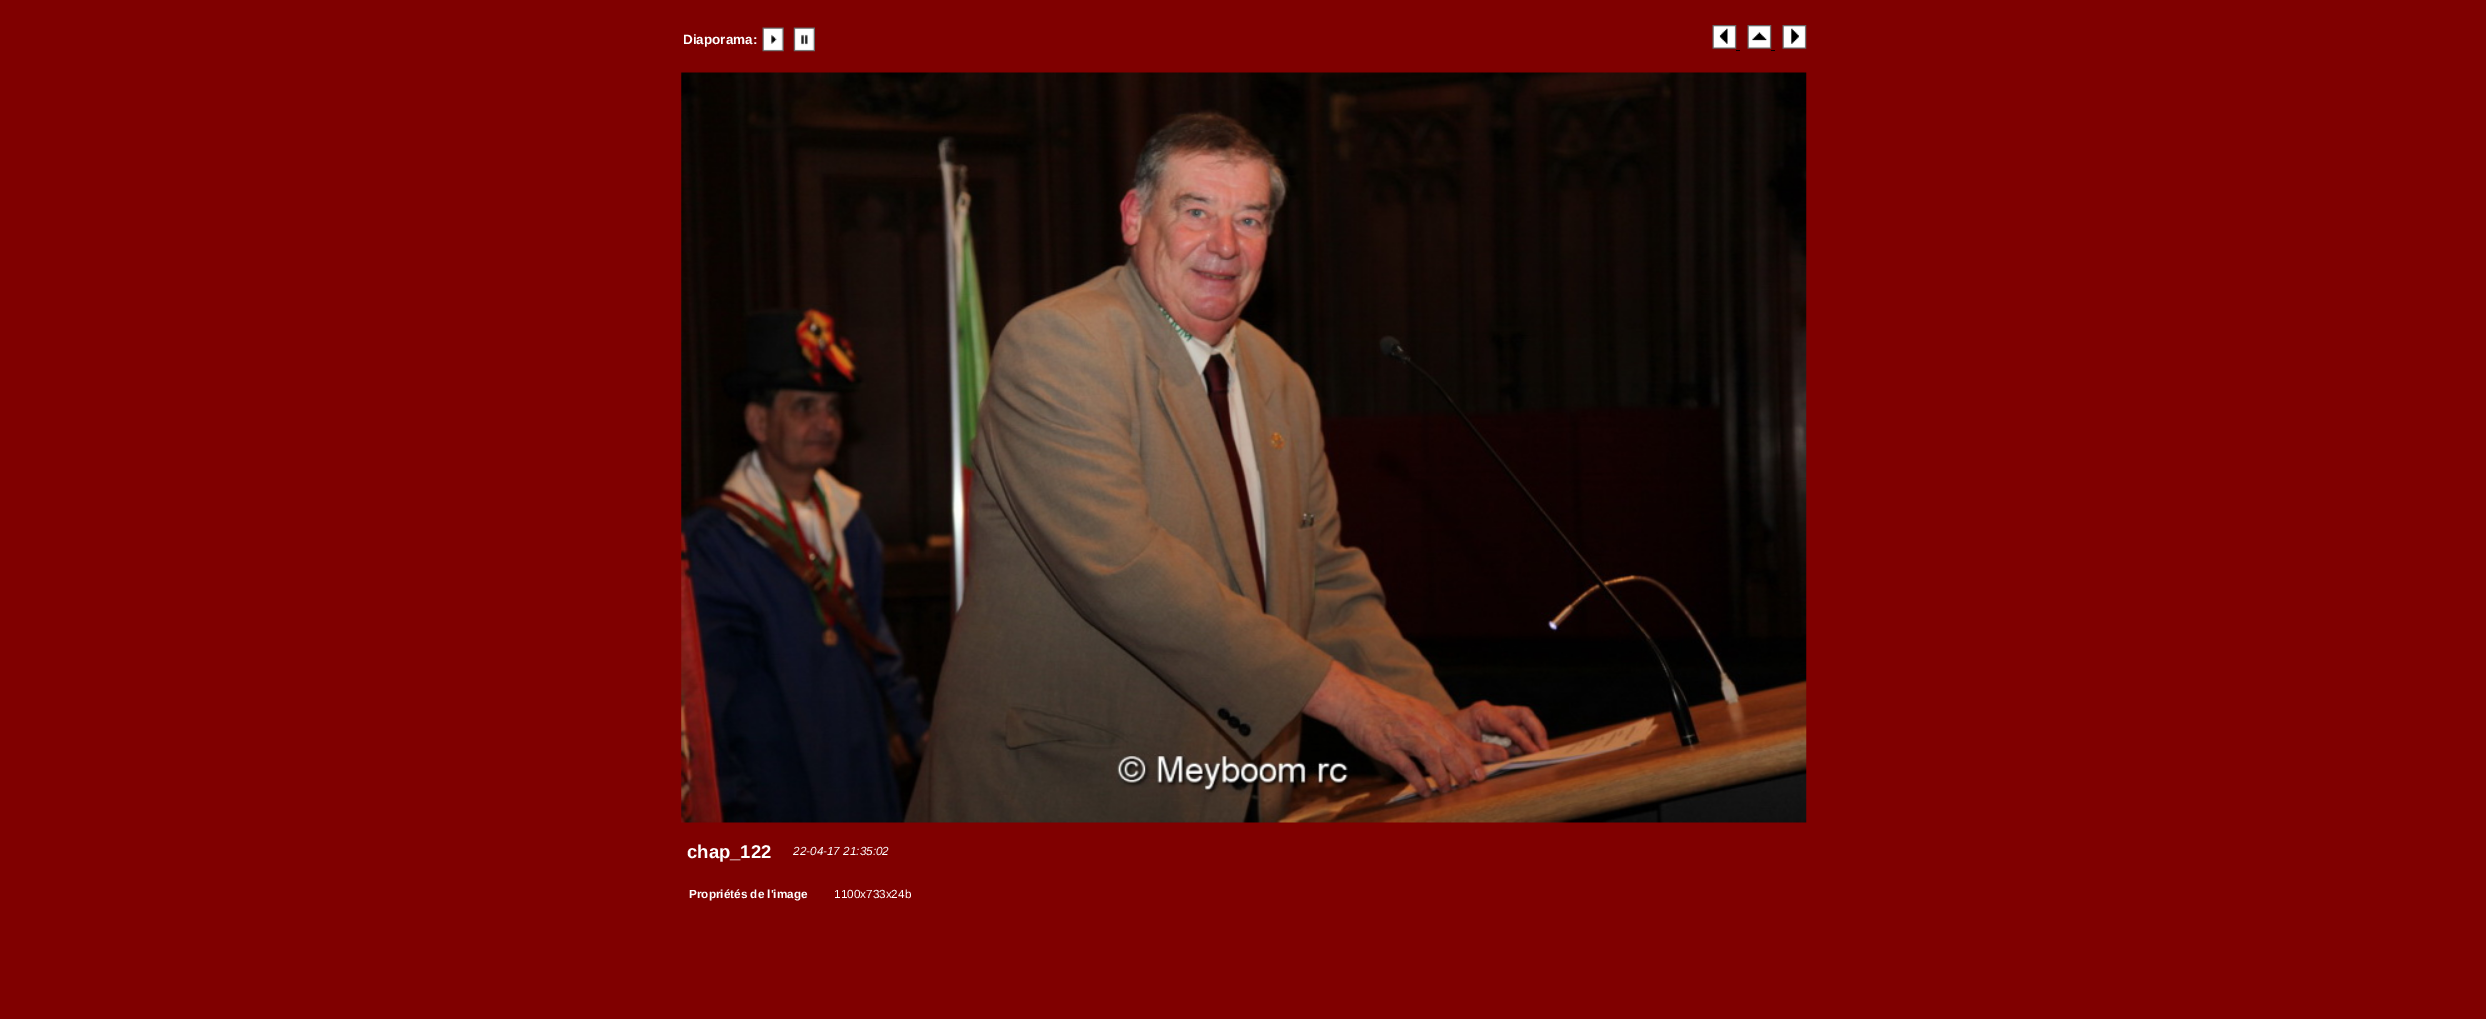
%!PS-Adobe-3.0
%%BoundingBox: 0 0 2486 1019
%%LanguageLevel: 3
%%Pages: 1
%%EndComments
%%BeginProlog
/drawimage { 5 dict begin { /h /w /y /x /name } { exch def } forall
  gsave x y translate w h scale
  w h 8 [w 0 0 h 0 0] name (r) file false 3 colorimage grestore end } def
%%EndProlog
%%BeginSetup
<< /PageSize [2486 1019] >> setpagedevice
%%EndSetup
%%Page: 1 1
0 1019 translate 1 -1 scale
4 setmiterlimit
0.502 0 0 setrgbcolor
0 0 2486 1019 rectfill
(images/1.raw) 762 27 22 25 drawimage
(images/2.raw) 793 27 22 25 drawimage
(images/3.raw) 1712 25 25 24 drawimage
(images/4.raw) 1747 25 25 24 drawimage
(images/5.raw) 1782 25 25 24 drawimage
0 setgray
1736 50 4 1 rectfill
1771 50 4 1 rectfill
(images/6.raw) 681 72 1126 751 drawimage
/LiberationSans-Bold [13.5 0 0 -13.5 0 0] selectfont
1 setgray
683 44 moveto (Diaporama:) show
/LiberationSans-Bold [18.5 0 0 -18.5 0 0] selectfont
687 858 moveto (chap_122) show
/LiberationSans-Italic [11.75 0 0 -11.75 0 0] selectfont
793 855 moveto (22-04-17 21:35:02) show
/LiberationSans-Bold [11.75 0 0 -11.75 0 0] selectfont
689 898 moveto (Propriétés de l'image) show
/LiberationSans-Regular [11.75 0 0 -11.75 0 0] selectfont
834 898 moveto (1100x733x24b) show
showpage
%%EOF
